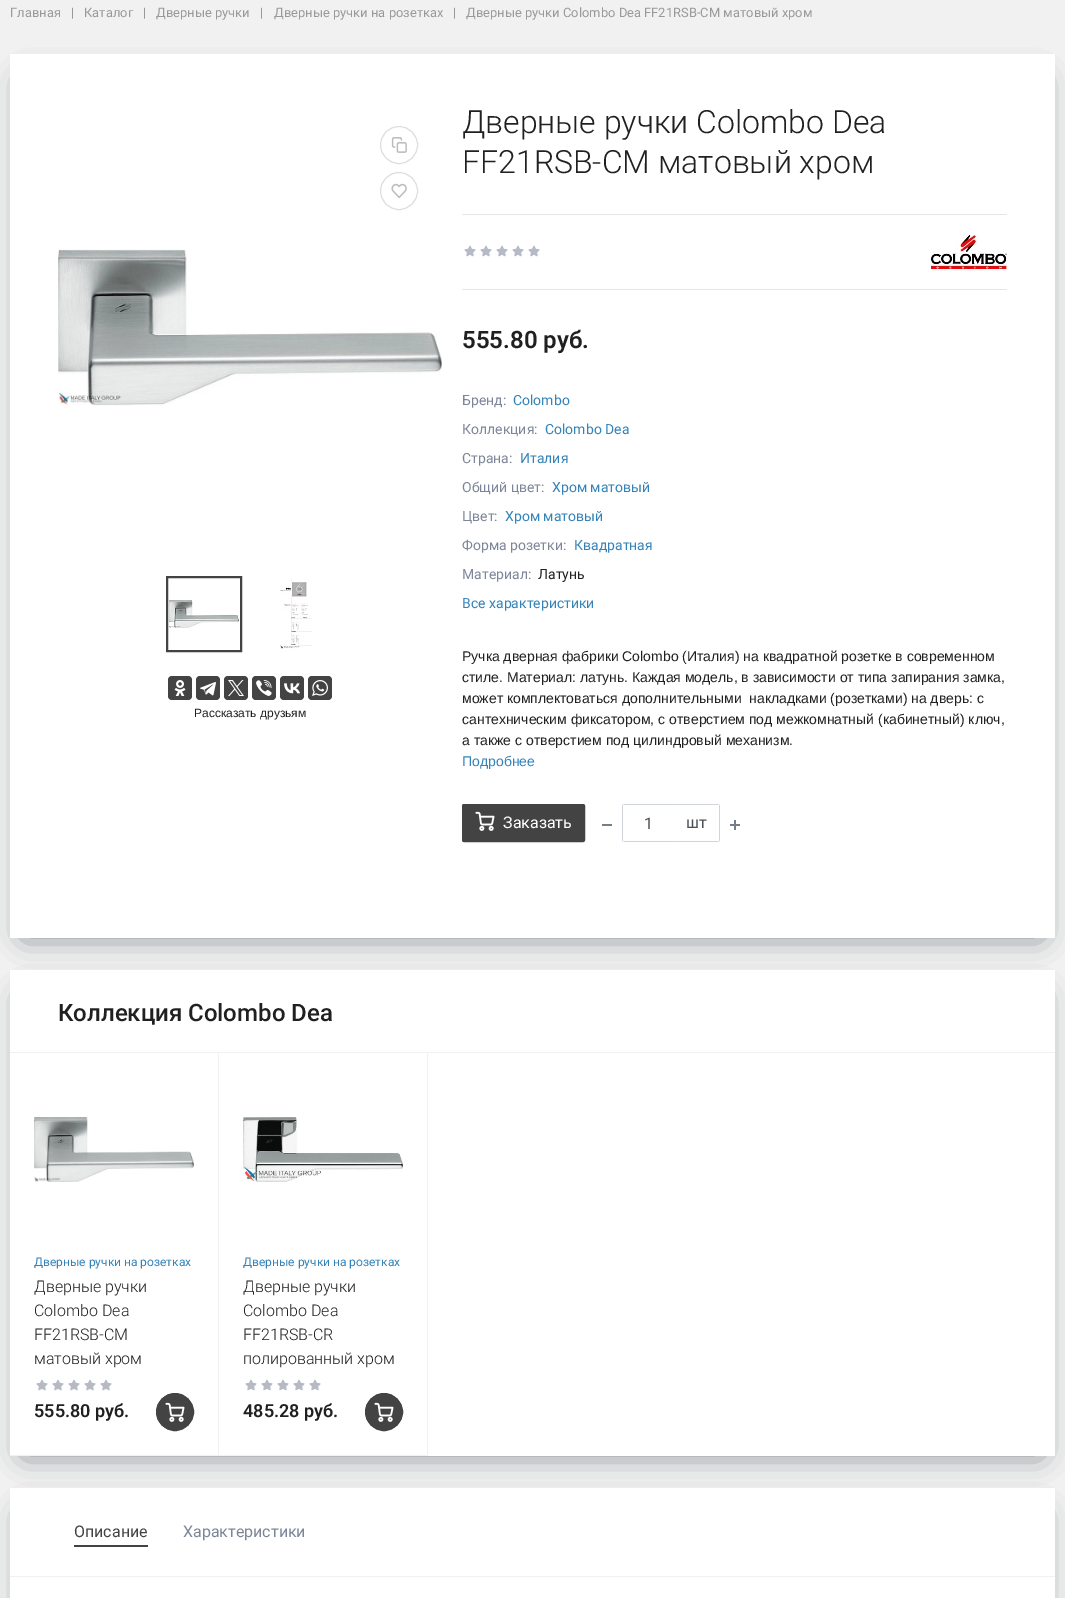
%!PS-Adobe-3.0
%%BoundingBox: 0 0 1065 1598
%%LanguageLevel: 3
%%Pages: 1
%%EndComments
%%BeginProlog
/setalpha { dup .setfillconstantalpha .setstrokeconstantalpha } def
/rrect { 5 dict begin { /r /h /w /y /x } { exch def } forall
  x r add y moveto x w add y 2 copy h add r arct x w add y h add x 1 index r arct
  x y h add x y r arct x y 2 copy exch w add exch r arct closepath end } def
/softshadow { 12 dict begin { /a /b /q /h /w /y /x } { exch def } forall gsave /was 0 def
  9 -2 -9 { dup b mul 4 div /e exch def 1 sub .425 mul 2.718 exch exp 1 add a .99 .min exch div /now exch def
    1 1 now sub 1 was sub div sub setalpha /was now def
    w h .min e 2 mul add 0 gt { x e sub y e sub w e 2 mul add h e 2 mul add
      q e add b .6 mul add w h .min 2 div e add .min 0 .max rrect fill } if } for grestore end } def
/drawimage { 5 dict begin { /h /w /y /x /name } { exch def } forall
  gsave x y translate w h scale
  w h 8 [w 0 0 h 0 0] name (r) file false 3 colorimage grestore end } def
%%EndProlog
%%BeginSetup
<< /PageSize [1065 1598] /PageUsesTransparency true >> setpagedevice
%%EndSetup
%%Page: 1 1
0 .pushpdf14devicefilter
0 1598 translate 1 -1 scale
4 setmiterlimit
0.945 setgray
0 0 1065 1598 rectfill
0.239 0.282 0.318 setrgbcolor
25 81 1015 854 0 15 0.75 softshadow
1 setgray
10 54 1045 884 rectfill
0.871 setgray
newpath 399 145 18.5 0 360 arc closepath stroke
(images/1.raw) 391 137 16 16 drawimage
newpath 399 191 18.5 0 360 arc closepath stroke
(images/2.raw) 391 183 16 16 drawimage
(images/3.raw) 58 249 384 157 drawimage
0.263 setgray
2 setlinewidth
167 577 74 74 rectstroke
(images/4.raw) 169 600 70 28 drawimage
(images/5.raw) 280 579 32 70 drawimage
168 676 24 24 4 rrect fill
(images/6.raw) 174 680 12 16 drawimage
196 676 24 24 4 rrect fill
(images/7.raw) 200 682 16 14 drawimage
224 676 24 24 4 rrect fill
(images/8.raw) 228 680 16 16 drawimage
252 676 24 24 4 rrect fill
(images/9.raw) 256 680 16 16 drawimage
280 676 24 24 4 rrect fill
(images/10.raw) 284 683 16 11 drawimage
308 676 24 24 4 rrect fill
(images/11.raw) 312 680 16 16 drawimage
0.898 0.902 0.918 setrgbcolor
462 214 545 1 rectfill
462 289 545 1 rectfill
(images/12.raw) 464 245 12 12 drawimage
(images/12.raw) 480 245 12 12 drawimage
(images/12.raw) 496 245 12 12 drawimage
(images/12.raw) 512 245 12 12 drawimage
(images/12.raw) 528 245 12 12 drawimage
(images/13.raw) 931 235 76 34 drawimage
0.263 setgray
462.5 804.5 122 37 1.5 rrect gsave fill grestore
1 setlinewidth
stroke
(images/14.raw) 475 811 20 20 drawimage
0.459 0.49 0.525 setrgbcolor
602 824 10 2 rectfill
0.808 0.831 0.855 setrgbcolor
newpath 673 804 moveto 674 805 lineto 719 805 lineto 718 804 lineto closepath 720 840 moveto 720 806 lineto 719.5 804.5 lineto 719 805 lineto 719 841 lineto 719.5 841.5 lineto closepath fill
newpath 718 842 moveto 719 841 lineto 674 841 lineto 673 842 lineto closepath fill
newpath 624 804 moveto 623 805 lineto 673 805 lineto 674 804 lineto closepath 674 842 moveto 673 841 lineto 623 841 lineto 624 842 lineto closepath 622 806 moveto 622 840 lineto 622.5 841.5 lineto 623 841 lineto 623 805 lineto 622.5 804.5 lineto closepath fill
(images/15.raw) 730 820 10 10 drawimage
0.239 0.282 0.318 setrgbcolor
25 997 1015 456 0 15 0.75 softshadow
1 setgray
10 970 1045 82 rectfill
10 1053 1045 403 rectfill
0.945 setgray
10 1052 1045 1 rectfill
218 1053 1 403 rectfill
10 1455 209 1 rectfill
(images/16.raw) 34 1117 160 65 drawimage
(images/12.raw) 36 1379 12 12 drawimage
(images/12.raw) 52 1379 12 12 drawimage
(images/12.raw) 68 1379 12 12 drawimage
(images/12.raw) 84 1379 12 12 drawimage
(images/12.raw) 100 1379 12 12 drawimage
0.263 setgray
newpath 175 1412 18.5 0 360 arc closepath gsave fill grestore
stroke
(images/14.raw) 165 1402 20 20 drawimage
0.945 setgray
427 1053 1 403 rectfill
219 1455 209 1 rectfill
(images/17.raw) 243 1117 160 65 drawimage
(images/12.raw) 245 1379 12 12 drawimage
(images/12.raw) 261 1379 12 12 drawimage
(images/12.raw) 277 1379 12 12 drawimage
(images/12.raw) 293 1379 12 12 drawimage
(images/12.raw) 309 1379 12 12 drawimage
0.263 setgray
newpath 384 1412 18.5 0 360 arc closepath gsave fill grestore
stroke
(images/14.raw) 374 1402 20 20 drawimage
0.239 0.282 0.318 setrgbcolor
25 1515 1015 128 0 15 0.75 softshadow
1 setgray
10 1488 1045 88 rectfill
0.945 setgray
10 1576 1045 1 rectfill
0.263 setgray
74 1545 74 2 rectfill
1 setgray
10 1577 1045 21 rectfill
/Roboto-Regular [12.95 0 0 -12.95 0 0] selectfont
0.6 setgray
10 17 moveto (Главная) show
71 17 moveto (|) show
84 17 moveto (Каталог) show
143 17 moveto (|) show
156 17 moveto (Дверные ручки) show
260 17 moveto (|) show
274 17 moveto (Дверные ручки на розетках) show
453 17 moveto (|) show
466 17 moveto (Дверные ручки Colombo Dea FF21RSB-CM матовый хром) show
/LiberationSans-Regular [12 0 0 -12 0 0] selectfont
0.125 setgray
194 717 moveto (Рассказать друзьям) show
/Roboto-Light [32 0 0 -32 0 0] selectfont
462 133 moveto (Дверные ручки Colombo Dea) show
462 173 moveto (FF21RSB-CM матовый хром) show
/Roboto-SemiBold [24 0 0 -24 0 0] selectfont
462 348 moveto (555.80 руб.) show
/Roboto-Regular [14 0 0 -14 0 0] selectfont
0.49 0.525 0.596 setrgbcolor
462 405 moveto (Бренд:) show
0.204 0.514 0.722 setrgbcolor
513 405 moveto (Colombo) show
0.49 0.525 0.596 setrgbcolor
462 434 moveto (Коллекция:) show
0.204 0.514 0.722 setrgbcolor
545 434 moveto (Colombo Dea) show
0.49 0.525 0.596 setrgbcolor
462 463 moveto (Страна:) show
0.204 0.514 0.722 setrgbcolor
520 463 moveto (Италия) show
0.49 0.525 0.596 setrgbcolor
462 492 moveto (Общий цвет:) show
0.204 0.514 0.722 setrgbcolor
552 492 moveto (Хром матовый) show
0.49 0.525 0.596 setrgbcolor
462 521 moveto (Цвет:) show
0.204 0.514 0.722 setrgbcolor
505 521 moveto (Хром матовый) show
0.49 0.525 0.596 setrgbcolor
462 550 moveto (Форма розетки:) show
0.204 0.514 0.722 setrgbcolor
574 550 moveto (Квадратная) show
0.49 0.525 0.596 setrgbcolor
462 579 moveto (Материал:) show
0.125 setgray
538 579 moveto (Латунь) show
0.204 0.514 0.722 setrgbcolor
462 608 moveto (Все характеристики) show
/LiberationSans-Regular [14 0 0 -14 0 0] selectfont
0.125 setgray
462 661 moveto (Ручка дверная фабрики Colombo \(Италия\) на квадратной розетке в современном) show
462 682 moveto (стиле. Материал: латунь. Каждая модель, в зависимости от типа запирания замка,) show
462 703 moveto (может комплектоваться дополнительными  накладками \(розетками\) на дверь: с) show
462 724 moveto (сантехническим фиксатором, с отверстием под межкомнатный \(кабинетный\) ключ,) show
462 745 moveto (а также с отверстием под цилиндровый механизм.) show
0.204 0.514 0.722 setrgbcolor
462 766 moveto (Подробнее) show
/Roboto-Regular [16 0 0 -16 0 0] selectfont
1 setgray
503 828 moveto (Заказать) show
0.286 0.314 0.341 setrgbcolor
644 829 moveto (1) show
686 828 moveto (шт) show
/Roboto-Medium [24 0 0 -24 0 0] selectfont
0.125 setgray
58 1021 moveto (Коллекция Colombo Dea) show
/Roboto-Regular [12 0 0 -12 0 0] selectfont
0.204 0.514 0.722 setrgbcolor
34 1266 moveto (Дверные ручки на розетках) show
/Roboto-Light [16 0 0 -16 0 0] selectfont
0.125 setgray
34 1292 moveto (Дверные ручки) show
34 1316 moveto (Colombo Dea) show
34 1340 moveto (FF21RSB-CM) show
34 1364 moveto (матовый хром) show
/Roboto-SemiBold [18 0 0 -18 0 0] selectfont
34 1417 moveto (555.80 руб.) show
/Roboto-Regular [12 0 0 -12 0 0] selectfont
0.204 0.514 0.722 setrgbcolor
243 1266 moveto (Дверные ручки на розетках) show
/Roboto-Light [16 0 0 -16 0 0] selectfont
0.125 setgray
243 1292 moveto (Дверные ручки) show
243 1316 moveto (Colombo Dea) show
243 1340 moveto (FF21RSB-CR) show
243 1364 moveto (полированный хром) show
/Roboto-SemiBold [18 0 0 -18 0 0] selectfont
243 1417 moveto (485.28 руб.) show
/Roboto-Regular [16 0 0 -16 0 0] selectfont
0.263 setgray
74 1537 moveto (Описание) show
0.49 0.525 0.596 setrgbcolor
183 1537 moveto (Характеристики) show
.poppdf14devicefilter showpage
%%EOF
